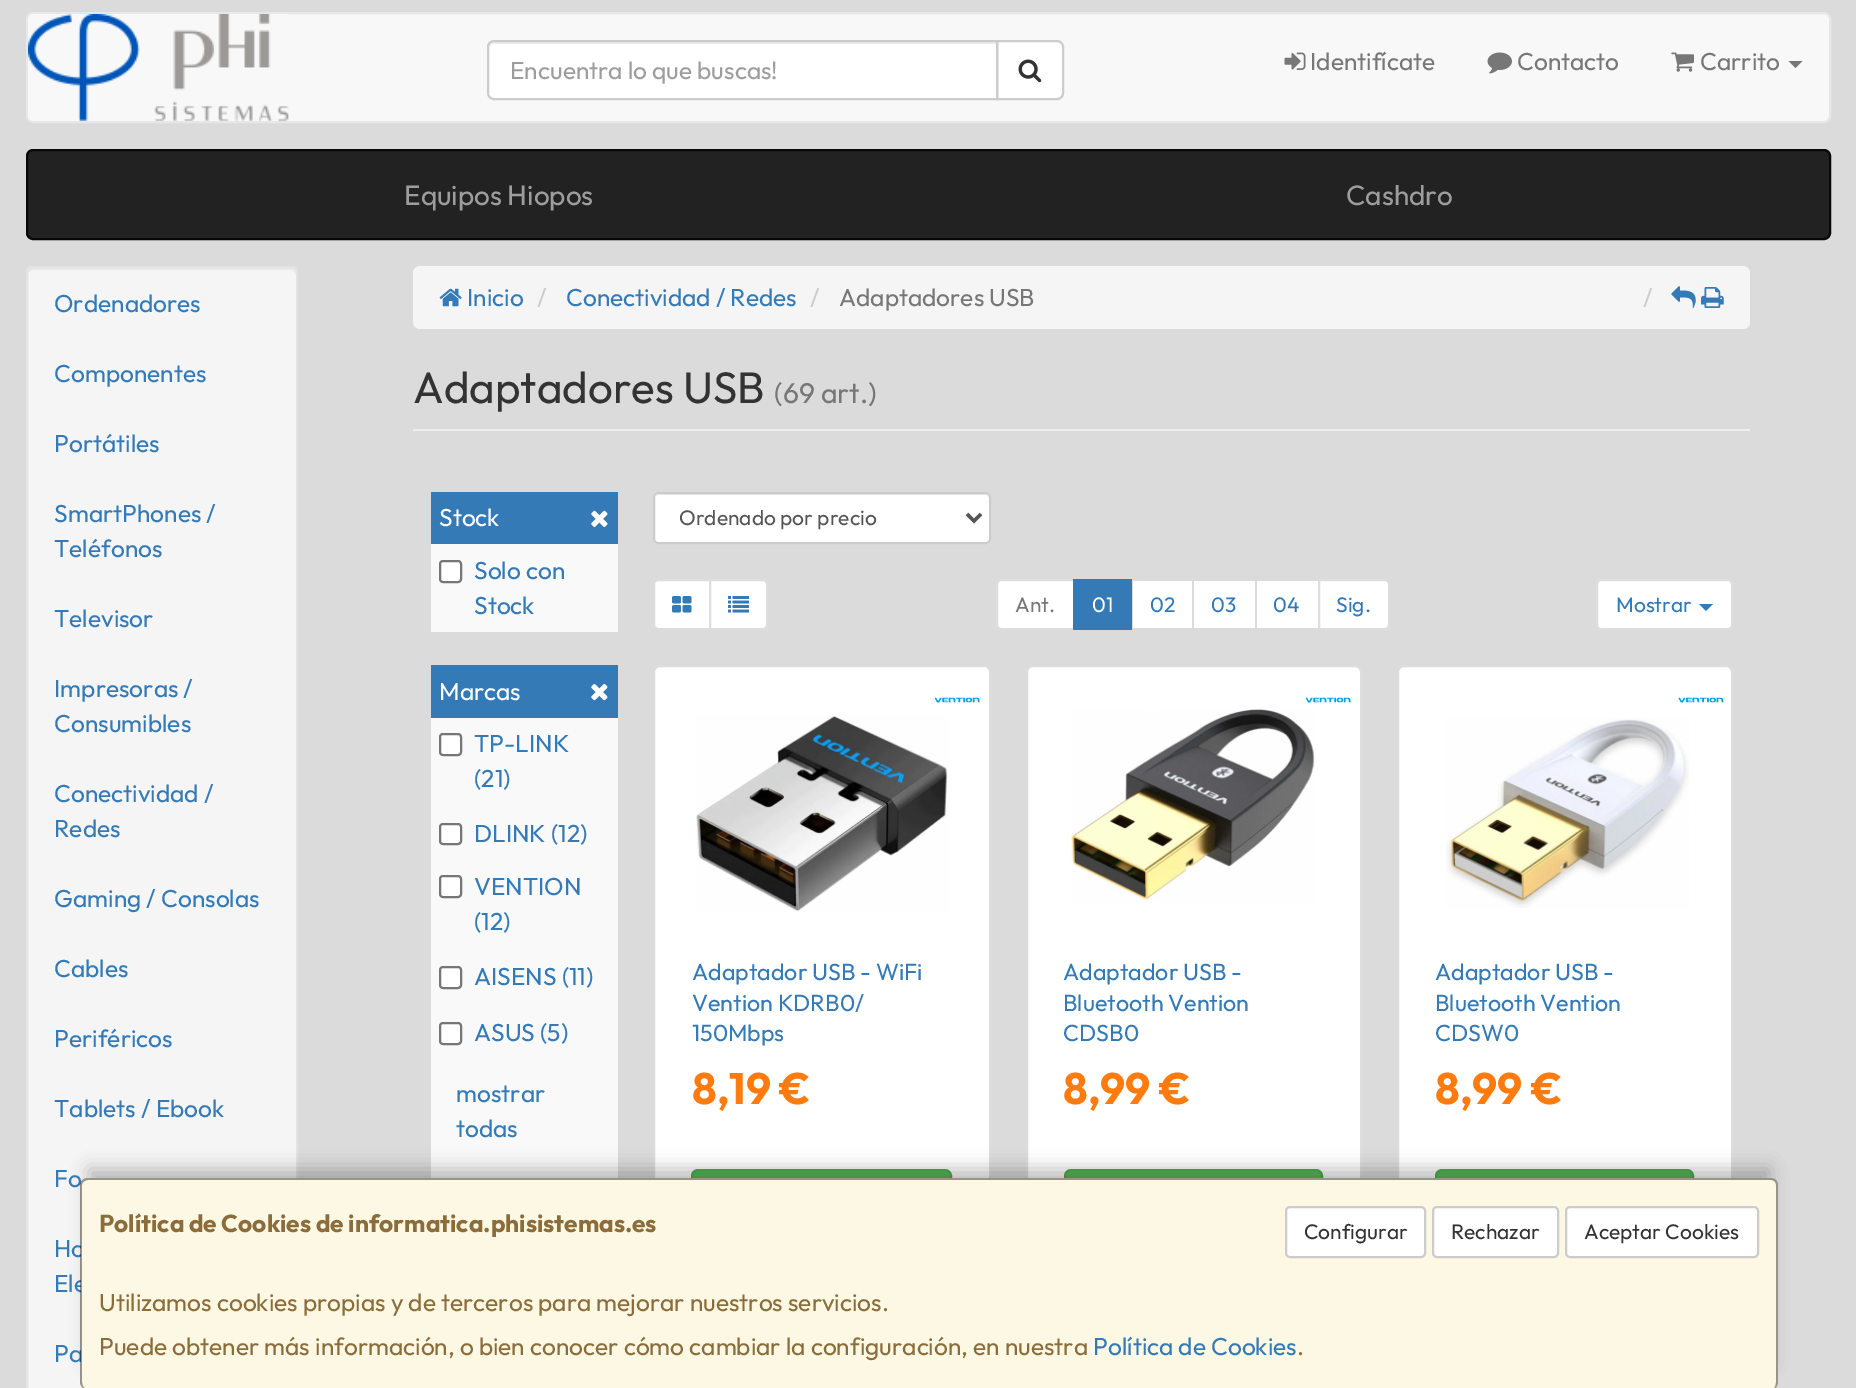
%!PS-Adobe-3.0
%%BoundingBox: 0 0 1856 1388
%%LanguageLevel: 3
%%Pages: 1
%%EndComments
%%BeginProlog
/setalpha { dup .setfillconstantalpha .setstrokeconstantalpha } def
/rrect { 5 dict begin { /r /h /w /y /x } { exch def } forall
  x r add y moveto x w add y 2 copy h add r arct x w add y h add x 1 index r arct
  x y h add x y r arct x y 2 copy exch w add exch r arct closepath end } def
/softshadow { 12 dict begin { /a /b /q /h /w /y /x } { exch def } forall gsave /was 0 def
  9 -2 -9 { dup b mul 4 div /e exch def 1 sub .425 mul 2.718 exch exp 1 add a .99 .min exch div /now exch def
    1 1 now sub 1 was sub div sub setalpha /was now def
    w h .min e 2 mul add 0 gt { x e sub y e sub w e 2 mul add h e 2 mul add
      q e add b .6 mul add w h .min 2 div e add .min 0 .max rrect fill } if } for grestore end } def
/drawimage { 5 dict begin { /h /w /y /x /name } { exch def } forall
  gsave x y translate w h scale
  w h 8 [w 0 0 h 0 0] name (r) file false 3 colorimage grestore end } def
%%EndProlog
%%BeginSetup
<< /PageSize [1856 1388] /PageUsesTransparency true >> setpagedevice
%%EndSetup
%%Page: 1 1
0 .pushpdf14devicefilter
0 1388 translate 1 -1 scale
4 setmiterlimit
0.859 setgray
0 0 1856 1388 rectfill
0.973 setgray
27 13 1803 109 6 rrect gsave fill grestore
0.906 setgray
2 setlinewidth
stroke
(images/1.raw) 28 14 261 107 drawimage
1 setgray
newpath 997 41 moveto 1057 41 lineto 1060.5 41 1063 43.5 1063 47 curveto 1063 93 lineto 1063 96.5 1060.5 99 1057 99 curveto 997 99 lineto closepath gsave fill grestore
0.8 setgray
stroke
1 setgray
newpath 494 40 moveto 998 40 lineto 998 100 lineto 494 100 lineto 490 100 487 97 487 93 curveto 487 47 lineto 487 43 490 40 494 40 curveto closepath fill
0.925 setgray
newpath 494 44 moveto 996 44 lineto 996 42 lineto 493 42 lineto 490 42 488 44 488 47 curveto 488 49 lineto 488 46 491 44 494 44 curveto closepath fill
0.8 setgray
newpath 494 41 moveto 997 41 lineto 997 99 lineto 494 99 lineto 490.5 99 488 96.5 488 93 curveto 488 47 lineto 488 43.5 490.5 41 494 41 curveto closepath stroke
(images/2.raw) 1018 59 24 24 drawimage
(images/3.raw) 1284 52 22 18 drawimage
(images/4.raw) 1487 52 25 22 drawimage
(images/5.raw) 1671 52 23 20 drawimage
0.467 setgray
newpath 1788.5 61 moveto 1802.5 61 lineto 1795.5 68 lineto closepath fill
0.133 setgray
27 150 1803 89 6 rrect gsave fill grestore
0.031 setgray
stroke
0.961 setgray
26 266 272 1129 7 rrect fill
0.914 setgray
newpath 33 270 moveto 290 270 lineto 293 270 296 272 296 275 curveto 296 273 lineto 296 270 294 268 291 268 curveto 33 268 lineto 30 268 28 270 28 273 curveto 28 275 lineto 28 272 30 270 33 270 curveto closepath fill
0.89 setgray
27 267 270 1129 6 rrect stroke
0.961 setgray
413 266 1337 63 7 rrect fill
(images/6.raw) 439 288 23 19 drawimage
(images/7.raw) 1671 286 25 22 drawimage
(images/8.raw) 1701 287 23 21 drawimage
0.933 setgray
413 429 1337 2 rectfill
0.2 0.478 0.718 setrgbcolor
431 492 187 52 rectfill
(images/9.raw) 591 510 17 17 drawimage
0.976 setgray
431 544 187 88 rectfill
1 setgray
440 561 21 21 3 rrect gsave fill grestore
0.463 setgray
stroke
0.2 0.478 0.718 setrgbcolor
431 665 187 53 rectfill
(images/10.raw) 591 684 17 17 drawimage
0.976 setgray
431 718 187 460 rectfill
1 setgray
440 734 21 21 3 rrect gsave fill grestore
0.463 setgray
stroke
1 setgray
440 824 21 20 3 rrect gsave fill grestore
0.463 setgray
stroke
1 setgray
440 876 21 21 3 rrect gsave fill grestore
0.463 setgray
stroke
1 setgray
440 967 21 21 3 rrect gsave fill grestore
0.463 setgray
stroke
1 setgray
440 1023 21 21 3 rrect gsave fill grestore
0.463 setgray
stroke
1 setgray
653 492 338 52 5 rrect fill
0.925 setgray
newpath 658 495 moveto 985 495 lineto 987 495 989 497 989 499 curveto 989 498 lineto 989 496 987 494 985 494 curveto 659 494 lineto 658 494 656 495 656 496 curveto closepath fill
0.8 setgray
654 493 336 50 4 rrect stroke
0.333 setgray
3.5 setlinewidth
newpath 967 514 moveto 974 521 lineto 981 514 lineto stroke
1 setgray
newpath 658 580 moveto 710 580 lineto 710 629 lineto 658 629 lineto 656 629 654 627 654 625 curveto 654 584 lineto 654 582 656 580 658 580 curveto closepath gsave fill grestore
0.867 setgray
2 setlinewidth
stroke
(images/11.raw) 672 596 20 17 drawimage
1 setgray
newpath 710 580 moveto 763 580 lineto 765 580 767 582 767 584 curveto 767 625 lineto 767 627 765 629 763 629 curveto 710 629 lineto closepath gsave fill grestore
0.867 setgray
stroke
(images/12.raw) 728 596 21 17 drawimage
1 setgray
newpath 1001 580 moveto 1074 580 lineto 1074 629 lineto 1001 629 lineto 999 629 997 627 997 625 curveto 997 584 lineto 997 582 999 580 1001 580 curveto closepath gsave fill grestore
0.867 setgray
stroke
0.2 0.478 0.718 setrgbcolor
1073 579 59 51 rectfill
1 setgray
1133 581 59 47 rectfill
1194 581 61 47 rectfill
1257 581 61 47 rectfill
newpath 1319 580 moveto 1385 580 lineto 1387 580 1389 582 1389 584 curveto 1389 625 lineto 1389 627 1387 629 1385 629 curveto 1319 629 lineto closepath gsave fill grestore
0.867 setgray
stroke
1 setgray
1597 580 135 49 4 rrect gsave fill grestore
0.867 setgray
stroke
0.2 0.478 0.718 setrgbcolor
newpath 1699 604 moveto 1713 604 lineto 1706 611 lineto closepath fill
1 setgray
654 666 336 600 6 rrect gsave fill grestore
0.867 setgray
stroke
(images/13.raw) 935 697 46 6 drawimage
(images/14.raw) 696 716 252 196 drawimage
0.361 0.722 0.361 setrgbcolor
692 1170 259 58 6 rrect gsave fill grestore
0.298 0.682 0.298 setrgbcolor
stroke
1 setgray
1027 666 334 600 6 rrect gsave fill grestore
0.867 setgray
stroke
(images/13.raw) 1306 697 46 6 drawimage
(images/15.raw) 1071 709 244 194 drawimage
0.361 0.722 0.361 setrgbcolor
1065 1170 257 58 6 rrect gsave fill grestore
0.298 0.682 0.298 setrgbcolor
stroke
1 setgray
1398 666 334 600 6 rrect gsave fill grestore
0.867 setgray
stroke
(images/16.raw) 1678 697 47 6 drawimage
(images/17.raw) 1446 718 243 190 drawimage
0.361 0.722 0.361 setrgbcolor
1436 1170 257 58 6 rrect gsave fill grestore
0.298 0.682 0.298 setrgbcolor
stroke
0 setgray
89 1169 1680 194 0 9 0.25 softshadow
/Outfit-Regular [24.5 0 0 -24.5 0 0] selectfont
0.616 setgray
510 79 moveto (Encuentra lo que buscas!) show
0.467 setgray
1310 70 moveto (Identifícate) show
1517 70 moveto (Contacto) show
1700 70 moveto (Carrito) show
/Outfit-Regular [28 0 0 -28 0 0] selectfont
0.616 setgray
404 205 moveto (Equipos Hiopos) show
1346 205 moveto (Cashdro) show
/Outfit-Regular [24.5 0 0 -24.5 0 0] selectfont
0.2 0.478 0.718 setrgbcolor
54 312 moveto (Ordenadores) show
54 382 moveto (Componentes) show
54 452 moveto (Portátiles) show
54 522 moveto (SmartPhones /) show
54 557 moveto (Teléfonos) show
54 627 moveto (Televisor) show
54 697 moveto (Impresoras /) show
54 732 moveto (Consumibles) show
54 802 moveto (Conectividad /) show
54 837 moveto (Redes) show
54 907 moveto (Gaming / Consolas) show
54 977 moveto (Cables) show
54 1047 moveto (Periféricos) show
54 1117 moveto (Tablets / Ebook) show
54 1187 moveto (Fo) show
54 1257 moveto (Ho) show
54 1292 moveto (Ele) show
54 1362 moveto (Pa) show
467 306 moveto (Inicio) show
0.8 setgray
537 306 moveto (/) show
0.2 0.478 0.718 setrgbcolor
566 306 moveto (Conectividad / Redes) show
0.8 setgray
810 306 moveto (/) show
0.467 setgray
839 306 moveto (Adaptadores USB) show
0.8 setgray
1643 306 moveto (/) show
/Outfit-Regular [44 0 0 -44 0 0] selectfont
0.2 setgray
413 403 moveto (Adaptadores USB) show
/Outfit-Regular [28.5 0 0 -28.5 0 0] selectfont
0.467 setgray
774 403 moveto (\(69 art.\)) show
/Outfit-Regular [24.5 0 0 -24.5 0 0] selectfont
1 setgray
439 526 moveto (Stock) show
0.2 0.478 0.718 setrgbcolor
474 579 moveto (Solo con) show
474 614 moveto (Stock) show
1 setgray
439 700 moveto (Marcas) show
0.2 0.478 0.718 setrgbcolor
474 752 moveto (TP-LINK) show
474 787 moveto (\(21\)) show
474 842 moveto (DLINK \(12\)) show
474 895 moveto (VENTION) show
474 930 moveto (\(12\)) show
474 985 moveto (AISENS \(11\)) show
474 1041 moveto (ASUS \(5\)) show
456 1102 moveto (mostrar) show
456 1137 moveto (todas) show
/Outfit-Regular [21 0 0 -21 0 0] selectfont
0.333 setgray
679 525 moveto (Ordenado por precio) show
0.467 setgray
1015 612 moveto (Ant.) show
1 setgray
1092 612 moveto (01) show
0.2 0.478 0.718 setrgbcolor
1150 612 moveto (02) show
1211 612 moveto (03) show
1273 612 moveto (04) show
1336 612 moveto (Sig.) show
1616 612 moveto (Mostrar) show
/Outfit-Regular [23.25 0 0 -23.25 0 0] selectfont
692 980 moveto (Adaptador USB - WiFi) show
692 1011 moveto (Vention KDRB0/) show
692 1041 moveto (150Mbps) show
/Outfit-Bold [44 0 0 -44 0 0] selectfont
1 0.482 0.051 setrgbcolor
692 1104 moveto (8,19 €) show
/Outfit-Regular [23.25 0 0 -23.25 0 0] selectfont
0.2 0.478 0.718 setrgbcolor
1063 980 moveto (Adaptador USB -) show
1063 1011 moveto (Bluetooth Vention) show
1063 1041 moveto (CDSB0) show
/Outfit-Bold [44 0 0 -44 0 0] selectfont
1 0.482 0.051 setrgbcolor
1063 1104 moveto (8,99 €) show
/Outfit-Regular [23.25 0 0 -23.25 0 0] selectfont
0.2 0.478 0.718 setrgbcolor
1435 980 moveto (Adaptador USB -) show
1435 1011 moveto (Bluetooth Vention) show
1435 1041 moveto (CDSW0) show
/Outfit-Bold [44 0 0 -44 0 0] selectfont
1 0.482 0.051 setrgbcolor
1435 1104 moveto (8,99 €) show
0.988 0.973 0.89 setrgbcolor
81 1178 1697 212 7 rrect fill
0.4 setalpha
0 setgray
newpath 88 1178 moveto 1771 1178 lineto 1775 1178 1778 1181 1778 1185 curveto 1778 1382 lineto 1778 1386 1775 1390 1771 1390 curveto 88 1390 lineto 84 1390 80 1386 80 1382 curveto 80 1185 lineto 80 1181 84 1178 88 1178 curveto closepath 88 1180 moveto 1771 1180 lineto 1774 1180 1776 1182 1776 1185 curveto 1776 1382 lineto 1776 1386 1774 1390 1771 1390 curveto 88 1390 lineto 85 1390 82 1386 82 1382 curveto 82 1185 lineto 82 1182 85 1180 88 1180 curveto closepath eofill
/Outfit-Bold [24.5 0 0 -24.5 0 0] selectfont
1 setalpha
0.541 0.427 0.231 setrgbcolor
99 1232 moveto (Política de Cookies de informatica.phisistemas.es) show
1 setgray
1286 1207 139 50 4 rrect gsave fill grestore
0.8 setgray
stroke
/Outfit-Regular [21 0 0 -21 0 0] selectfont
0.2 setgray
1304 1239 moveto (Configurar) show
1 setgray
1433 1207 125 50 4 rrect gsave fill grestore
0.8 setgray
stroke
0.2 setgray
1451 1239 moveto (Rechazar) show
1 setgray
1566 1207 192 50 4 rrect gsave fill grestore
0.8 setgray
stroke
0.2 setgray
1584 1239 moveto (Aceptar Cookies) show
/Outfit-Regular [24.5 0 0 -24.5 0 0] selectfont
0.541 0.427 0.231 setrgbcolor
99 1311 moveto (Utilizamos cookies propias y de terceros para mejorar nuestros servicios.) show
99 1355 moveto (Puede obtener más información, o bien conocer cómo cambiar la configuración, en nuestra) show
0.2 0.478 0.718 setrgbcolor
1093 1355 moveto (Política de Cookies) show
0.541 0.427 0.231 setrgbcolor
1297 1355 moveto (.) show
.poppdf14devicefilter showpage
%%EOF
